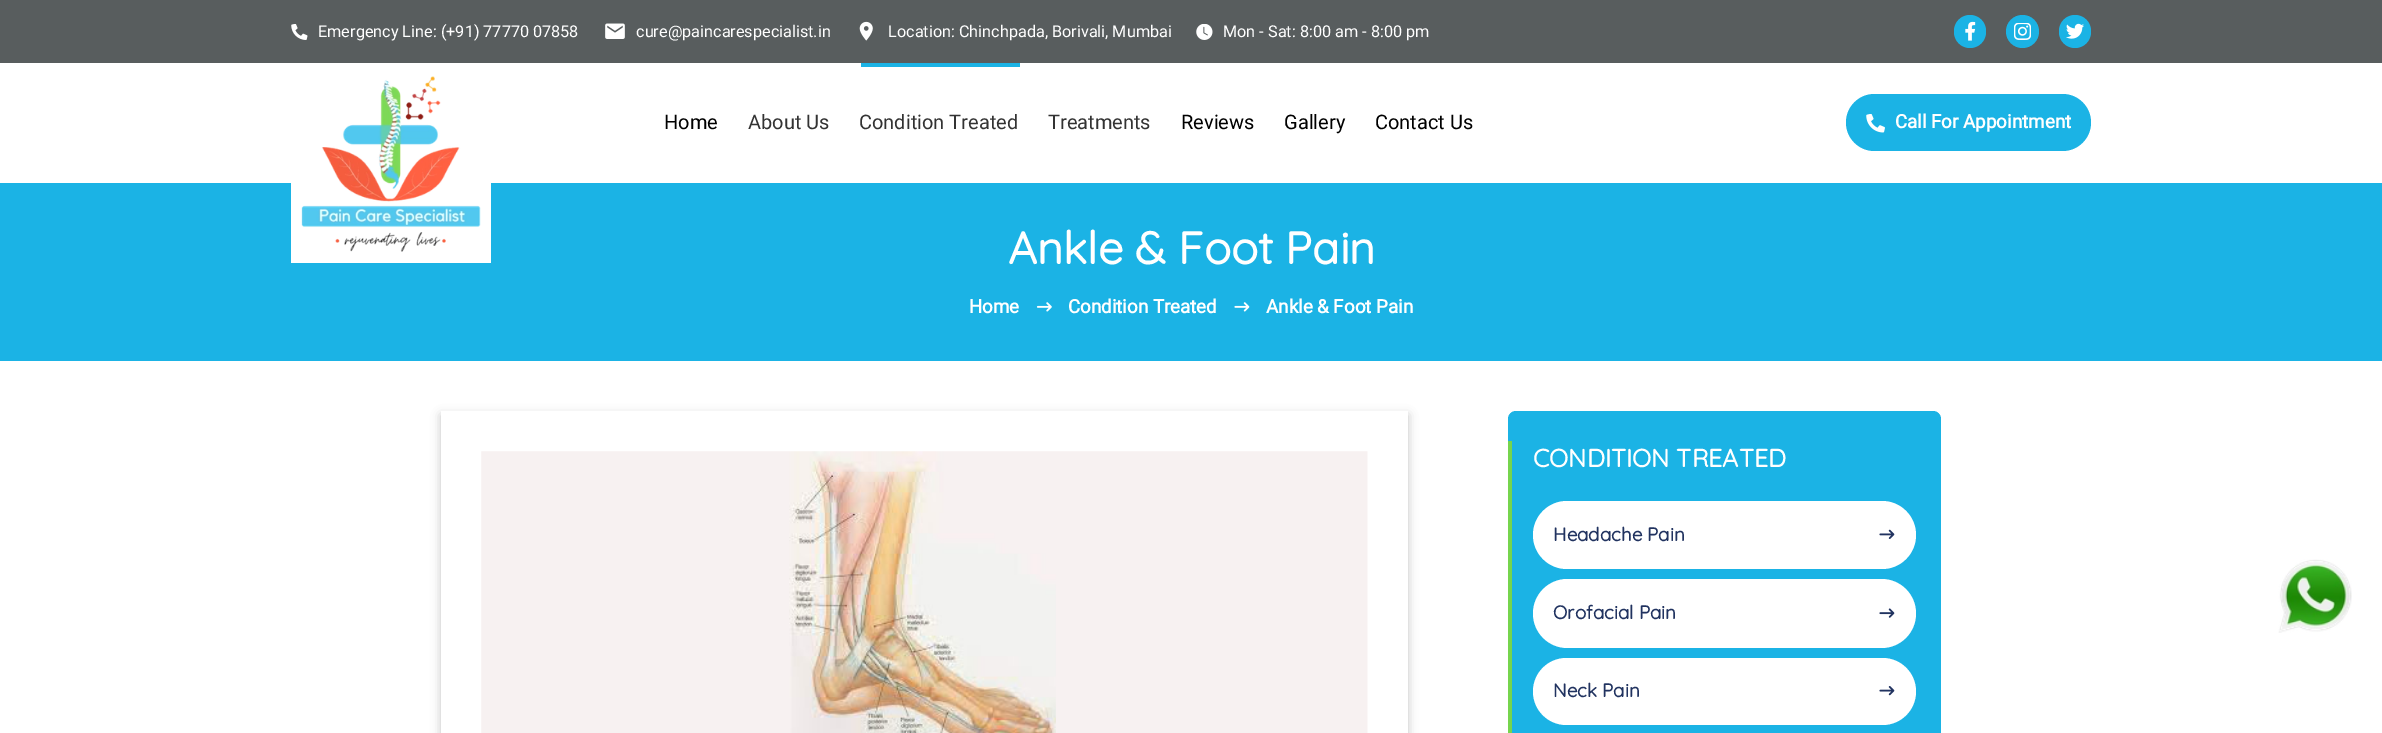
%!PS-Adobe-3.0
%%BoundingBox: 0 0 2382 733
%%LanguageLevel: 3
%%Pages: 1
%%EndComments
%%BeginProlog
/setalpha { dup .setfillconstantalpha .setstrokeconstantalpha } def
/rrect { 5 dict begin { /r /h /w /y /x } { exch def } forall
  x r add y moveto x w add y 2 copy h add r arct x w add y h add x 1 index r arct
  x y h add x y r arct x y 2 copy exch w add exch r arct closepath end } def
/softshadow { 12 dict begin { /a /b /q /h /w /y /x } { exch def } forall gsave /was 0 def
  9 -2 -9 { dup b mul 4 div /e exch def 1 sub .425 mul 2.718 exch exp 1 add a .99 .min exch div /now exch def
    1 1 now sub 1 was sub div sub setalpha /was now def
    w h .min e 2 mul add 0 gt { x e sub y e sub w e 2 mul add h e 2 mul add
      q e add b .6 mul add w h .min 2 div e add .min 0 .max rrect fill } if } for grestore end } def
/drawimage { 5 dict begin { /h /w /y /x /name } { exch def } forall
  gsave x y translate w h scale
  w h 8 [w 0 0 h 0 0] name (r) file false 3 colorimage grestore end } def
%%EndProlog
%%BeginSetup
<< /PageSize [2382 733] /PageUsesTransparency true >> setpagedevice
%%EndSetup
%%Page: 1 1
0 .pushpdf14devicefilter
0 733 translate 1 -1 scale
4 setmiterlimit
1 setgray
0 0 2382 733 rectfill
0.345 0.365 0.369 setrgbcolor
0 0 2382 63 rectfill
(images/1.raw) 291 24 17 16 drawimage
(images/2.raw) 605 23 20 16 drawimage
(images/3.raw) 859 21 14 20 drawimage
(images/4.raw) 1196 24 17 16 drawimage
0.106 0.702 0.898 setrgbcolor
1954 15 32 33 16 rrect fill
(images/5.raw) 1965 21 11 20 drawimage
newpath 2022.5 31.5 16.5 0 360 arc closepath fill
(images/6.raw) 2014 23 17 17 drawimage
2059 15 32 33 16 rrect fill
(images/7.raw) 2066 23 18 16 drawimage
0 183 2382 178 rectfill
1 setgray
291 183 200 80 rectfill
(images/8.raw) 301 76 180 176 drawimage
0.106 0.702 0.898 setrgbcolor
861 63 159 4 rectfill
1846 94 245 57 28.5 rrect fill
(images/9.raw) 1866 114 19 19 drawimage
(images/10.raw) 1036 302 16 10 drawimage
(images/11.raw) 1234 302 16 10 drawimage
gsave
newpath 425 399 moveto 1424 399 lineto 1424 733 lineto 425 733 lineto closepath 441 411 moveto 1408 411 lineto 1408 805 lineto 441 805 lineto closepath eoclip newpath
0 setgray
441 415 967 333 0 5 0.24 softshadow
grestore
(images/12.raw) 481 451 887 282 drawimage
1508 411 433 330 8 rrect fill
0.463 0.835 0.302 setrgbcolor
1508 441 4 292 rectfill
1 setgray
1533 501 383 68 34 rrect fill
(images/13.raw) 1879 529 16 10 drawimage
1533 579 383 69 34.5 rrect fill
(images/14.raw) 1879 608 16 10 drawimage
1533 658 383 67 33.5 rrect fill
(images/15.raw) 1879 686 16 10 drawimage
(images/16.raw) 2278 559 74 74 drawimage
/Roboto-Regular [16.25 0 0 -16.25 0 0] selectfont
318 37 moveto (Emergency Line: \(+91\) 77770 07858) show
636 37 moveto (cure@paincarespecialist.in) show
888 37 moveto (Location: Chinchpada, Borivali, Mumbai) show
1223 37 moveto (Mon - Sat: 8:00 am - 8:00 pm) show
/Roboto-Regular [20 0 0 -20 0 0] selectfont
0 setgray
664 129 moveto (Home) show
0.2 setgray
748 129 moveto (About Us) show
859 129 moveto (Condition Treated) show
1048 129 moveto (Treatments) show
0 setgray
1181 129 moveto (Reviews) show
1284 129 moveto (Gallery) show
1375 129 moveto (Contact Us) show
/Roboto-Bold [18.75 0 0 -18.75 0 0] selectfont
1 setgray
1895 128 moveto (Call For Appointment) show
/Quicksand-Bold [45 0 0 -45 0 0] selectfont
1008 264 moveto (Ankle & Foot Pain) show
/Roboto-Bold [18.75 0 0 -18.75 0 0] selectfont
969 313 moveto (Home) show
1068 313 moveto (Condition Treated) show
1266 313 moveto (Ankle & Foot Pain) show
/Quicksand-Bold [25 0 0 -25 0 0] selectfont
1533 467 moveto (CONDITION TREATED) show
/Quicksand-Bold [18.75 0 0 -18.75 0 0] selectfont
0.129 0.2 0.376 setrgbcolor
1553 541 moveto (Headache Pain) show
1553 619 moveto (Orofacial Pain) show
1553 697 moveto (Neck Pain) show
.poppdf14devicefilter showpage
%%EOF
